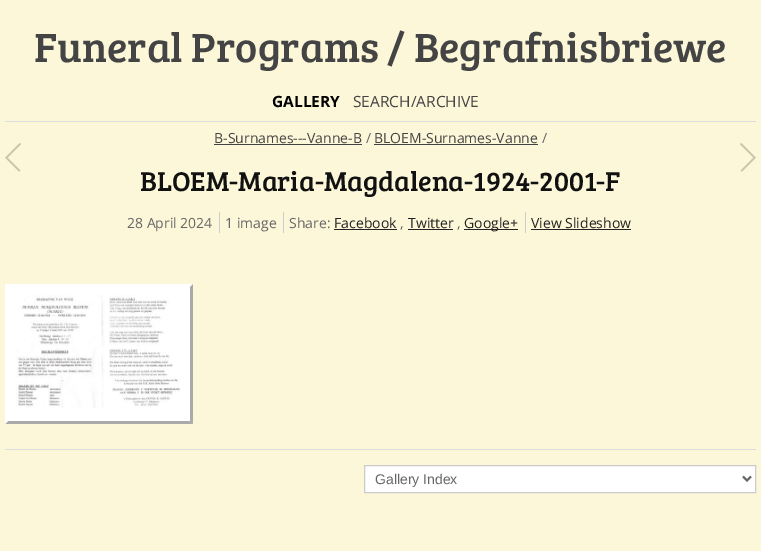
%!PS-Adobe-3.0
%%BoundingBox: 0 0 761 551
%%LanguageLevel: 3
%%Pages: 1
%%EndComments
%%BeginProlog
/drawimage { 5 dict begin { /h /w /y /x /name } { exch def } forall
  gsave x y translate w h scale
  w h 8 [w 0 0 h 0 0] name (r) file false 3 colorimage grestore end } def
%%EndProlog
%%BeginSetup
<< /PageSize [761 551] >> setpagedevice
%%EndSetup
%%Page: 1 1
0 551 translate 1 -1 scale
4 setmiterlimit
0.988 0.969 0.851 setrgbcolor
0 0 761 551 rectfill
0.867 setgray
5 121 751 1 rectfill
(images/1.raw) 5 143 16 29 drawimage
0.267 setgray
214 144 148 1 rectfill
374 144 164 1 rectfill
(images/2.raw) 740 143 16 29 drawimage
0.8 setgray
219 212 1 21 rectfill
283 212 1 21 rectfill
0.133 setgray
334 229 63 1 rectfill
408 229 45 1 rectfill
464 229 54 1 rectfill
0.8 setgray
525 212 1 21 rectfill
0.133 setgray
531 229 100 1 rectfill
1 setgray
5 284 188 140 rectfill
0.667 setgray
newpath 193 284 moveto 193 424 lineto 190 421 lineto 190 287 lineto closepath fill
newpath 193 424 moveto 5 424 lineto 8 421 lineto 190 421 lineto closepath fill
1 setgray
newpath 5 424 moveto 5 284 lineto 8 287 lineto 8 421 lineto closepath fill
(images/3.raw) 16 295 165 113 drawimage
0.867 setgray
5 449 751 1 rectfill
1 setgray
newpath 364.5 465.5 moveto 755.5 465.5 lineto 755.5 492.5 lineto 364.5 492.5 lineto closepath gsave fill grestore
0.8 setgray
stroke
0.4 setgray
2 setlinewidth
newpath 743 476.5 moveto 747 480.5 lineto 751 476.5 lineto stroke
/BreeSerif-Regular [42 0 0 -42 0 0] selectfont
0.267 setgray
34 62 moveto (Funeral Programs / Begrafnisbriewe) show
/OpenSans-Bold [15.5 0 0 -15.5 0 0] selectfont
0 setgray
272 107 moveto (GALLERY) show
/OpenSans-Regular [15.5 0 0 -15.5 0 0] selectfont
0.267 setgray
353 107 moveto (SEARCH/ARCHIVE) show
/OpenSans-Regular [14 0 0 -14 0 0] selectfont
214 143 moveto (B-Surnames---Vanne-B) show
0.4 setgray
366 143 moveto (/) show
0.267 setgray
374 143 moveto (BLOEM-Surnames-Vanne) show
0.4 setgray
542 143 moveto (/) show
/BreeSerif-Regular [28 0 0 -28 0 0] selectfont
0.067 setgray
140 191 moveto (BLOEM-Maria-Magdalena-1924-2001-F) show
/OpenSans-Regular [14 0 0 -14 0 0] selectfont
0.4 setgray
127 228 moveto (28 April 2024) show
225 228 moveto (1 image) show
289 228 moveto (Share:) show
0.133 setgray
334 228 moveto (Facebook) show
0.4 setgray
400 228 moveto (,) show
0.133 setgray
408 228 moveto (Twitter) show
0.4 setgray
457 228 moveto (,) show
0.133 setgray
464 228 moveto (Google+) show
531 228 moveto (View Slideshow) show
/LiberationSans-Regular [14 0 0 -14 0 0] selectfont
0.4 setgray
375 484 moveto (Gallery Index) show
showpage
%%EOF
